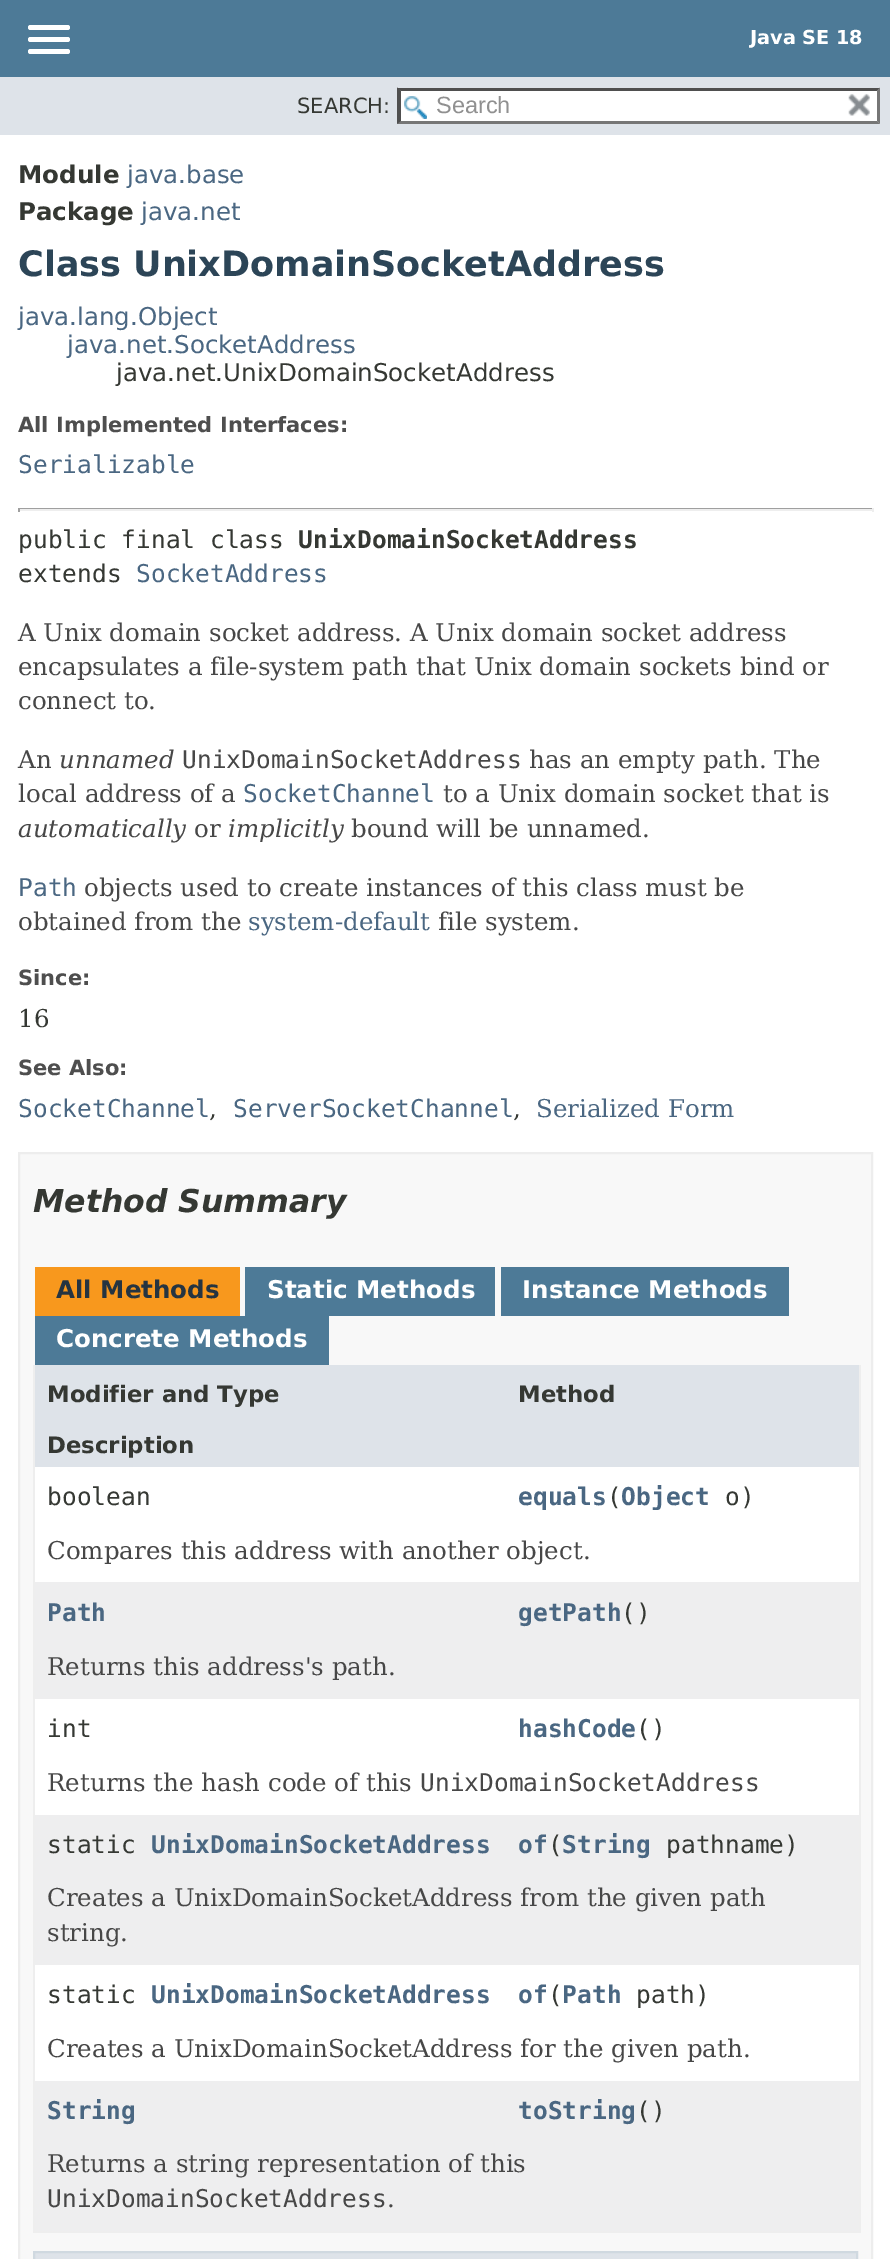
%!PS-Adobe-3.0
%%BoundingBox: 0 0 890 2259
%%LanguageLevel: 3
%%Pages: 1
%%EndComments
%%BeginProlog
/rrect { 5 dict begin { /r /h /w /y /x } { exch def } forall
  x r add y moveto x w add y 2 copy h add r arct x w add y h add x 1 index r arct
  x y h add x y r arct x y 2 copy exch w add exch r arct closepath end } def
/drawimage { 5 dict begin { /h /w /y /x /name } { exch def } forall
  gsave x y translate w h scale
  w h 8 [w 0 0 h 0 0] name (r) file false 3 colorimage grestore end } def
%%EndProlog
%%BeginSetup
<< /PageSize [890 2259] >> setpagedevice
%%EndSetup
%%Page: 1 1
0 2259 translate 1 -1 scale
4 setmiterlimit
1 setgray
0 0 890 2259 rectfill
0.302 0.478 0.592 setrgbcolor
0 0 890 77 rectfill
1 setgray
28 25 42 5 2.5 rrect fill
28 37 42 5 2.5 rrect fill
28 49 42 5 2.5 rrect fill
0.871 0.89 0.914 setrgbcolor
0 77 890 58 rectfill
1 setgray
397 88 483 36 rectfill
(images/1.raw) 404 96 23 23 drawimage
0.31 setgray
newpath 397 88 moveto 880 88 lineto 877 91 lineto 401 91 lineto closepath fill
0.463 setgray
newpath 880 87.5 moveto 880 124 lineto 877 121 lineto 877 91 lineto closepath fill
newpath 880 124 moveto 397 124 lineto 401 121 lineto 877 121 lineto closepath fill
0.31 setgray
newpath 397 124 moveto 397 87.5 lineto 401 91 lineto 401 121 lineto closepath fill
(images/2.raw) 848 93 22 23 drawimage
0.624 setgray
18 508 855 1 rectfill
0.933 setgray
872 508 2 4 rectfill
18 509 855 2 rectfill
0.624 setgray
18 508 2 4 rectfill
0.973 setgray
newpath 19 1153 moveto 872 1153 lineto 872 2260 lineto 19 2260 lineto closepath gsave fill grestore
0.929 setgray
2 setlinewidth
stroke
0.973 0.596 0.114 setrgbcolor
35 1267 205 49 rectfill
0.302 0.478 0.592 setrgbcolor
245 1267 250 49 rectfill
501 1267 288 49 rectfill
35 1316 294 49 rectfill
0.933 setgray
859 1365 2 868 rectfill
33 2231 828 2 rectfill
33 1365 2 868 rectfill
0.871 0.89 0.914 setrgbcolor
35 1365 824 51 rectfill
35 1416 824 51 rectfill
1 setgray
35 1467 824 54 rectfill
35 1521 824 61 rectfill
0.933 0.933 0.937 setrgbcolor
35 1582 824 54 rectfill
35 1636 824 63 rectfill
1 setgray
35 1699 824 53 rectfill
35 1752 824 63 rectfill
0.933 0.933 0.937 setrgbcolor
35 1815 824 52 rectfill
35 1867 824 98 rectfill
1 setgray
35 1965 824 53 rectfill
35 2018 824 63 rectfill
0.933 0.933 0.937 setrgbcolor
35 2081 824 52 rectfill
35 2133 824 98 rectfill
0.871 0.89 0.914 setrgbcolor
newpath 34 2252 moveto 857 2252 lineto 857 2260 lineto 34 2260 lineto closepath gsave fill grestore
0.816 0.851 0.878 setrgbcolor
stroke
/DejaVuSans-Bold [19.25 0 0 -19.25 0 0] selectfont
1 setgray
750 44 moveto (Java SE 18) show
/DejaVuSans-Regular [21 0 0 -21 0 0] selectfont
0.208 0.22 0.2 setrgbcolor
297 113 moveto (SEARCH:) show
/LiberationSans-Regular [23.5 0 0 -23.5 0 0] selectfont
0.565 setgray
436 113 moveto (Search) show
/DejaVuSans-Bold [24.5 0 0 -24.5 0 0] selectfont
0.208 0.22 0.2 setrgbcolor
18 183 moveto (Module) show
/DejaVuSans-Regular [24.5 0 0 -24.5 0 0] selectfont
0.29 0.404 0.51 setrgbcolor
127 183 moveto (java.base) show
/DejaVuSans-Bold [24.5 0 0 -24.5 0 0] selectfont
0.208 0.22 0.2 setrgbcolor
18 220 moveto (Package) show
/DejaVuSans-Regular [24.5 0 0 -24.5 0 0] selectfont
0.29 0.404 0.51 setrgbcolor
141 220 moveto (java.net) show
/DejaVuSans-Bold [35 0 0 -35 0 0] selectfont
0.173 0.271 0.341 setrgbcolor
18 276 moveto (Class UnixDomainSocketAddress) show
/DejaVuSans-Regular [24.5 0 0 -24.5 0 0] selectfont
0.29 0.404 0.51 setrgbcolor
18 325 moveto (java.lang.Object) show
67 353 moveto (java.net.SocketAddress) show
0.208 0.22 0.2 setrgbcolor
116 381 moveto (java.net.UnixDomainSocketAddress) show
/DejaVuSans-Bold [21 0 0 -21 0 0] selectfont
0.306 setgray
18 432 moveto (All Implemented Interfaces:) show
/DejaVuSansMono-Regular [24.5 0 0 -24.5 0 0] selectfont
0.29 0.404 0.51 setrgbcolor
18 473 moveto (Serializable) show
0.208 0.22 0.2 setrgbcolor
18 548 moveto (public final class) show
/DejaVuSansMono-Bold [24.5 0 0 -24.5 0 0] selectfont
298 548 moveto (UnixDomainSocketAddress) show
/DejaVuSansMono-Regular [24.5 0 0 -24.5 0 0] selectfont
18 582 moveto (extends) show
0.29 0.404 0.51 setrgbcolor
136 582 moveto (SocketAddress) show
/DejaVuSerif-Regular [24.5 0 0 -24.5 0 0] selectfont
0.278 setgray
18 641 moveto (A Unix domain socket address. A Unix domain socket address) show
18 675 moveto (encapsulates a file-system path that Unix domain sockets bind or) show
18 709 moveto (connect to.) show
18 768 moveto (An) show
/DejaVuSerif-Italic [24.5 0 0 -24.5 0 0] selectfont
59 768 moveto (unnamed) show
/DejaVuSansMono-Regular [24.5 0 0 -24.5 0 0] selectfont
182 768 moveto (UnixDomainSocketAddress) show
/DejaVuSerif-Regular [24.5 0 0 -24.5 0 0] selectfont
529 768 moveto (has an empty path. The) show
18 802 moveto (local address of a) show
/DejaVuSansMono-Regular [24.5 0 0 -24.5 0 0] selectfont
0.29 0.404 0.51 setrgbcolor
243 802 moveto (SocketChannel) show
/DejaVuSerif-Regular [24.5 0 0 -24.5 0 0] selectfont
0.278 setgray
443 802 moveto (to a Unix domain socket that is) show
/DejaVuSerif-Italic [24.5 0 0 -24.5 0 0] selectfont
18 837 moveto (automatically) show
/DejaVuSerif-Regular [24.5 0 0 -24.5 0 0] selectfont
194 837 moveto (or) show
/DejaVuSerif-Italic [24.5 0 0 -24.5 0 0] selectfont
228 837 moveto (implicitly) show
/DejaVuSerif-Regular [24.5 0 0 -24.5 0 0] selectfont
351 837 moveto (bound will be unnamed.) show
/DejaVuSansMono-Regular [24.5 0 0 -24.5 0 0] selectfont
0.29 0.404 0.51 setrgbcolor
18 896 moveto (Path) show
/DejaVuSerif-Regular [24.5 0 0 -24.5 0 0] selectfont
0.278 setgray
84 896 moveto (objects used to create instances of this class must be) show
18 930 moveto (obtained from the) show
0.29 0.404 0.51 setrgbcolor
248 930 moveto (system-default) show
0.278 setgray
438 930 moveto (file system.) show
/DejaVuSans-Bold [21 0 0 -21 0 0] selectfont
0.306 setgray
18 985 moveto (Since:) show
/DejaVuSerif-Regular [24.5 0 0 -24.5 0 0] selectfont
0.208 0.22 0.2 setrgbcolor
18 1027 moveto (16) show
/DejaVuSans-Bold [21 0 0 -21 0 0] selectfont
0.306 setgray
18 1075 moveto (See Also:) show
/DejaVuSansMono-Regular [24.5 0 0 -24.5 0 0] selectfont
0.29 0.404 0.51 setrgbcolor
18 1117 moveto (SocketChannel) show
/DejaVuSerif-Regular [24.5 0 0 -24.5 0 0] selectfont
0.208 0.22 0.2 setrgbcolor
209 1117 moveto (,) show
/DejaVuSansMono-Regular [24.5 0 0 -24.5 0 0] selectfont
0.29 0.404 0.51 setrgbcolor
233 1117 moveto (ServerSocketChannel) show
/DejaVuSerif-Regular [24.5 0 0 -24.5 0 0] selectfont
0.208 0.22 0.2 setrgbcolor
513 1117 moveto (,) show
0.29 0.404 0.51 setrgbcolor
536 1117 moveto (Serialized Form) show
/DejaVuSans-BoldItalic [31.5 0 0 -31.5 0 0] selectfont
0.208 0.22 0.2 setrgbcolor
33 1212 moveto (Method Summary) show
/DejaVuSans-Bold [24.5 0 0 -24.5 0 0] selectfont
0.145 0.204 0.255 setrgbcolor
56 1298 moveto (All Methods) show
1 setgray
267 1298 moveto (Static Methods) show
522 1298 moveto (Instance Methods) show
56 1347 moveto (Concrete Methods) show
/DejaVuSans-Bold [22.75 0 0 -22.75 0 0] selectfont
0.208 0.22 0.2 setrgbcolor
47 1402 moveto (Modifier and Type) show
518 1402 moveto (Method) show
47 1453 moveto (Description) show
/DejaVuSansMono-Regular [24.5 0 0 -24.5 0 0] selectfont
47 1505 moveto (boolean) show
/DejaVuSansMono-Bold [24.5 0 0 -24.5 0 0] selectfont
0.29 0.404 0.51 setrgbcolor
518 1505 moveto (equals Object) show
/DejaVuSansMono-Regular [24.5 0 0 -24.5 0 0] selectfont
0.208 0.22 0.2 setrgbcolor
607 1505 moveto (\() show
725 1505 moveto (o\)) show
/DejaVuSerif-Regular [24.5 0 0 -24.5 0 0] selectfont
0.278 setgray
47 1559 moveto (Compares this address with another object.) show
/DejaVuSansMono-Bold [24.5 0 0 -24.5 0 0] selectfont
0.29 0.404 0.51 setrgbcolor
47 1621 moveto (Path) show
518 1621 moveto (getPath) show
/DejaVuSansMono-Regular [24.5 0 0 -24.5 0 0] selectfont
0.208 0.22 0.2 setrgbcolor
621 1621 moveto (\(\)) show
/DejaVuSerif-Regular [24.5 0 0 -24.5 0 0] selectfont
0.278 setgray
47 1675 moveto (Returns this address's path.) show
/DejaVuSansMono-Regular [24.5 0 0 -24.5 0 0] selectfont
0.208 0.22 0.2 setrgbcolor
47 1737 moveto (int) show
/DejaVuSansMono-Bold [24.5 0 0 -24.5 0 0] selectfont
0.29 0.404 0.51 setrgbcolor
518 1737 moveto (hashCode) show
/DejaVuSansMono-Regular [24.5 0 0 -24.5 0 0] selectfont
0.208 0.22 0.2 setrgbcolor
636 1737 moveto (\(\)) show
/DejaVuSerif-Regular [24.5 0 0 -24.5 0 0] selectfont
0.278 setgray
47 1791 moveto (Returns the hash code of this) show
/DejaVuSansMono-Regular [24.5 0 0 -24.5 0 0] selectfont
420 1791 moveto (UnixDomainSocketAddress) show
0.208 0.22 0.2 setrgbcolor
47 1853 moveto (static) show
/DejaVuSansMono-Bold [24.5 0 0 -24.5 0 0] selectfont
0.29 0.404 0.51 setrgbcolor
151 1853 moveto (UnixDomainSocketAddress) show
518 1853 moveto (of String) show
/DejaVuSansMono-Regular [24.5 0 0 -24.5 0 0] selectfont
0.208 0.22 0.2 setrgbcolor
548 1853 moveto (\() show
666 1853 moveto (pathname\)) show
/DejaVuSerif-Regular [24.5 0 0 -24.5 0 0] selectfont
0.278 setgray
47 1906 moveto (Creates a UnixDomainSocketAddress from the given path) show
47 1941 moveto (string.) show
/DejaVuSansMono-Regular [24.5 0 0 -24.5 0 0] selectfont
0.208 0.22 0.2 setrgbcolor
47 2003 moveto (static) show
/DejaVuSansMono-Bold [24.5 0 0 -24.5 0 0] selectfont
0.29 0.404 0.51 setrgbcolor
151 2003 moveto (UnixDomainSocketAddress) show
518 2003 moveto (of Path) show
/DejaVuSansMono-Regular [24.5 0 0 -24.5 0 0] selectfont
0.208 0.22 0.2 setrgbcolor
548 2003 moveto (\() show
636 2003 moveto (path\)) show
/DejaVuSerif-Regular [24.5 0 0 -24.5 0 0] selectfont
0.278 setgray
47 2057 moveto (Creates a UnixDomainSocketAddress for the given path.) show
/DejaVuSansMono-Bold [24.5 0 0 -24.5 0 0] selectfont
0.29 0.404 0.51 setrgbcolor
47 2119 moveto (String) show
518 2119 moveto (toString) show
/DejaVuSansMono-Regular [24.5 0 0 -24.5 0 0] selectfont
0.208 0.22 0.2 setrgbcolor
636 2119 moveto (\(\)) show
/DejaVuSerif-Regular [24.5 0 0 -24.5 0 0] selectfont
0.278 setgray
47 2172 moveto (Returns a string representation of this) show
/DejaVuSansMono-Regular [24.5 0 0 -24.5 0 0] selectfont
47 2207 moveto (UnixDomainSocketAddress) show
/DejaVuSerif-Regular [24.5 0 0 -24.5 0 0] selectfont
387 2207 moveto (.) show
showpage
%%EOF
